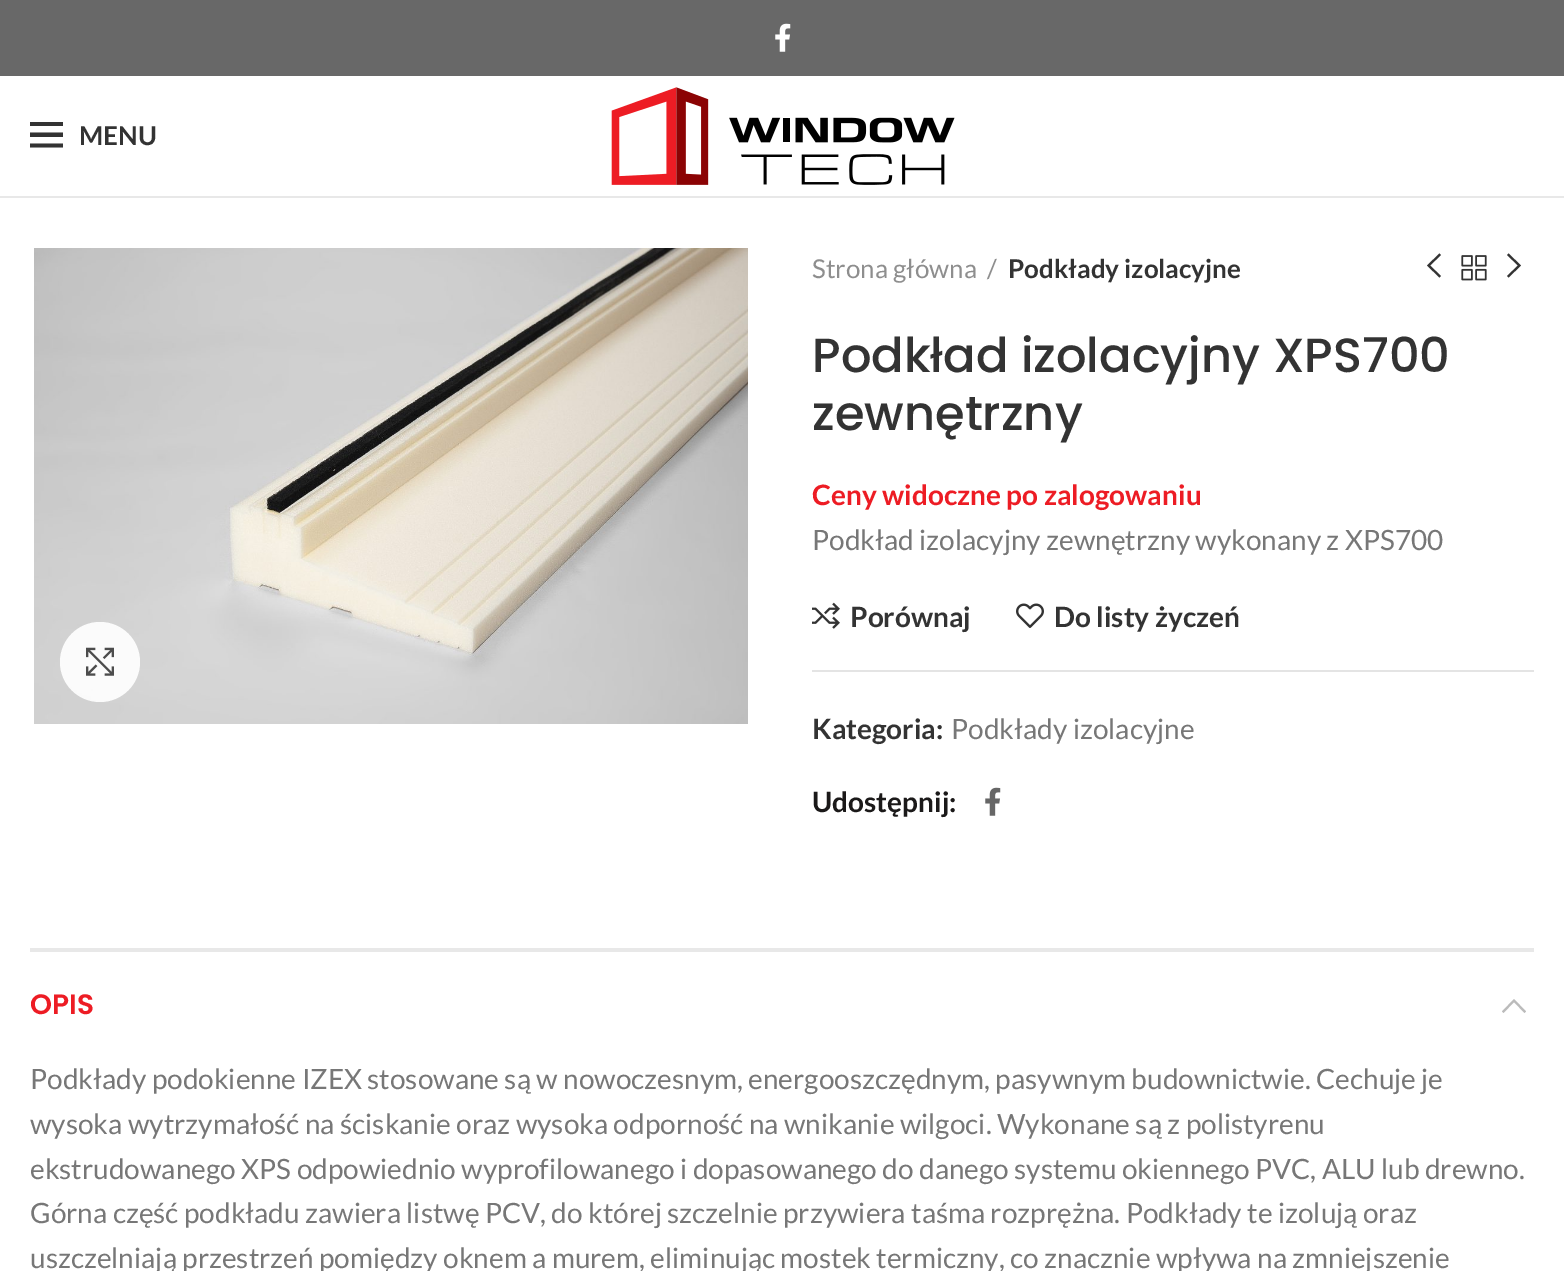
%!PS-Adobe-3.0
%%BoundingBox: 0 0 1564 1271
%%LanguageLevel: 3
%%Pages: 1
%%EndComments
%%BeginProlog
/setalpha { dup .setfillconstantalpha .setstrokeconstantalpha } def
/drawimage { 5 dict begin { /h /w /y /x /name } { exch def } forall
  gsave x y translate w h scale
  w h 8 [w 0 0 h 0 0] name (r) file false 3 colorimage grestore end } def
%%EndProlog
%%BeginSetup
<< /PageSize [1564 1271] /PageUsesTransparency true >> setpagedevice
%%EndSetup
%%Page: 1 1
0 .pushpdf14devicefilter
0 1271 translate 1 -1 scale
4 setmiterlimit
1 setgray
0 0 1564 1271 rectfill
0.408 setgray
0 0 1564 76 rectfill
(images/1.raw) 775 23 16 29 drawimage
0.91 setgray
0 196 1564 2 rectfill
0.2 setgray
newpath 30 122 moveto 63 122 lineto 63 126 lineto 30 126 lineto closepath 30 132.5 moveto 63 132.5 lineto 63 137 lineto 30 137 lineto closepath 30 143.5 moveto 63 143.5 lineto 63 147.5 lineto 30 147.5 lineto closepath fill
(images/2.raw) 611 87 344 98 drawimage
(images/3.raw) 34 248 714 476 drawimage
0.9 setalpha
1 setgray
newpath 100 662 40 0 360 arc closepath fill
1 setalpha
(images/4.raw) 86 647 28 29 drawimage
0.2 setgray
newpath 1441 255 moveto 1430 265.5 lineto 1441 276 lineto 1439.5 277.5 lineto 1427 265.5 lineto 1439.5 253.5 lineto closepath fill
(images/5.raw) 1461 255 26 26 drawimage
newpath 1508.5 253.5 moveto 1521 265.5 lineto 1508.5 277.5 lineto 1507 276 lineto 1518 265.5 lineto 1507 255 lineto closepath fill
(images/6.raw) 812 602 28 27 drawimage
(images/7.raw) 1016 603 28 25 drawimage
0.894 setgray
812 670 722 2 rectfill
(images/8.raw) 985 787 16 29 drawimage
0.91 setgray
30 948 1504 4 rectfill
0.733 setgray
newpath 1503.5 1013 moveto 1502 1011.5 lineto 1514 999 lineto 1526 1011.5 lineto 1524.5 1013 lineto 1514 1002 lineto closepath fill
/Lato-Bold [26 0 0 -26 0 0] selectfont
0.2 setgray
79 145 moveto (MENU) show
/Lato-Regular [26 0 0 -26 0 0] selectfont
0.557 setgray
812 278 moveto (Strona główna) show
987 278 moveto (/) show
/Lato-Bold [26 0 0 -26 0 0] selectfont
0.2 setgray
1008 278 moveto (Podkłady izolacyjne) show
/Poppins-Medium [48 0 0 -48 0 0] selectfont
812 372 moveto (Podkład izolacyjny XPS700) show
812 430 moveto (zewnętrzny) show
/Lato-Bold [28 0 0 -28 0 0] selectfont
0.929 0.11 0.141 setrgbcolor
812 505 moveto (Ceny widoczne po zalogowaniu) show
/Lato-Regular [28 0 0 -28 0 0] selectfont
0.467 setgray
812 550 moveto (Podkład izolacyjny zewnętrzny wykonany z XPS700) show
/Lato-Bold [28 0 0 -28 0 0] selectfont
0.2 setgray
850 627 moveto (Porównaj) show
1054 627 moveto (Do listy życzeń) show
812 739 moveto (Kategoria:) show
/Lato-Regular [28 0 0 -28 0 0] selectfont
0.467 setgray
951 739 moveto (Podkłady izolacyjne) show
/Lato-Bold [28 0 0 -28 0 0] selectfont
0.106 0.098 0.098 setrgbcolor
812 812 moveto (Udostępnij:) show
/Poppins-SemiBold [28 0 0 -28 0 0] selectfont
0.929 0.11 0.141 setrgbcolor
30 1014 moveto (OPIS) show
/Lato-Regular [28 0 0 -28 0 0] selectfont
0.467 setgray
30 1089 moveto (Podkłady podokienne IZEX stosowane są w nowoczesnym, energooszczędnym, pasywnym budownictwie. Cechuje je) show
30 1134 moveto (wysoka wytrzymałość na ściskanie oraz wysoka odporność na wnikanie wilgoci. Wykonane są z polistyrenu) show
30 1179 moveto (ekstrudowanego XPS odpowiednio wyprofilowanego i dopasowanego do danego systemu okiennego PVC, ALU lub drewno.) show
30 1223 moveto (Górna część podkładu zawiera listwę PCV, do której szczelnie przywiera taśma rozprężna. Podkłady te izolują oraz) show
30 1268 moveto (uszczelniają przestrzeń pomiędzy oknem a murem, eliminując mostek termiczny, co znacznie wpływa na zmniejszenie) show
.poppdf14devicefilter showpage
%%EOF
